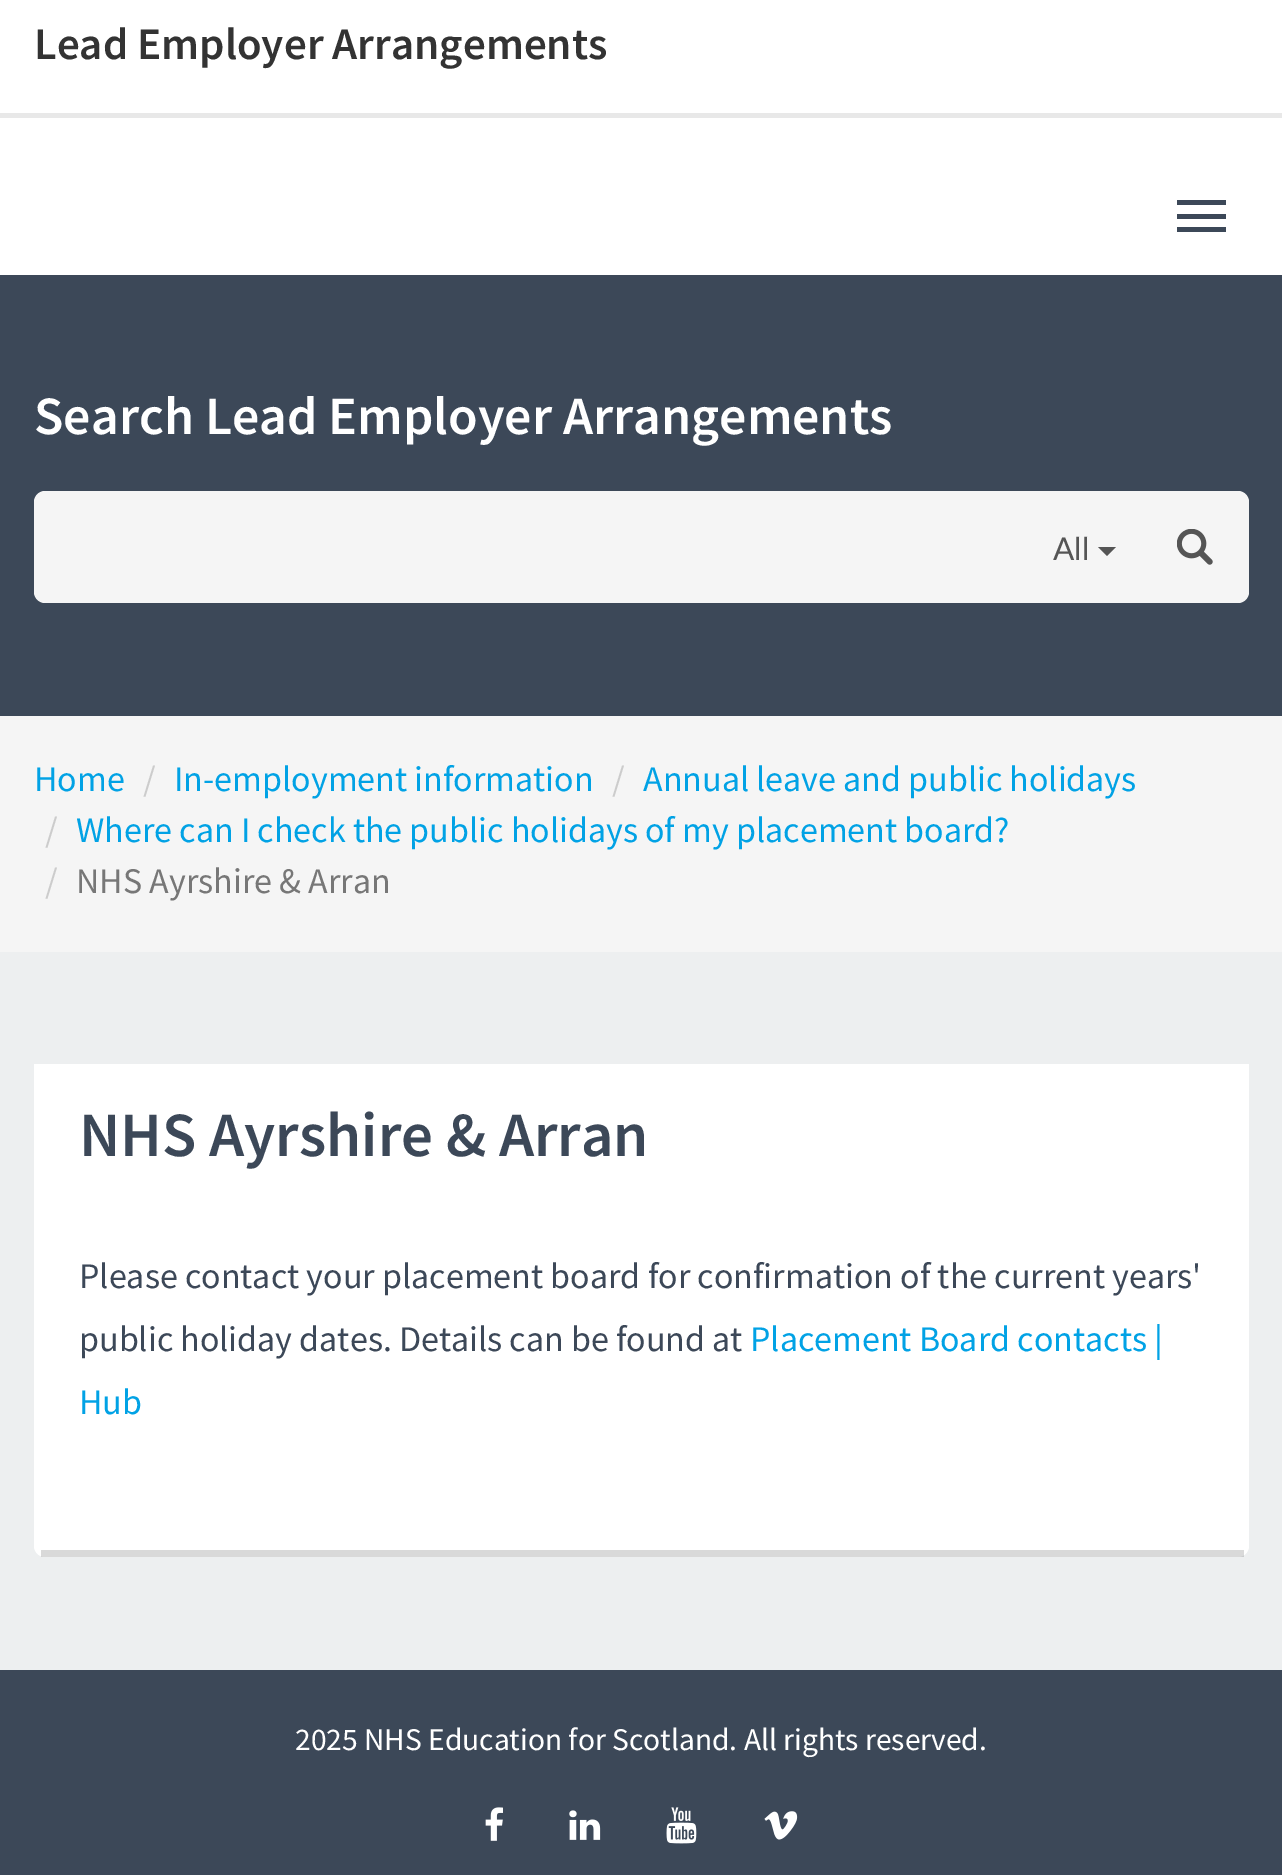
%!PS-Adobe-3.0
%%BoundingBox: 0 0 1282 1875
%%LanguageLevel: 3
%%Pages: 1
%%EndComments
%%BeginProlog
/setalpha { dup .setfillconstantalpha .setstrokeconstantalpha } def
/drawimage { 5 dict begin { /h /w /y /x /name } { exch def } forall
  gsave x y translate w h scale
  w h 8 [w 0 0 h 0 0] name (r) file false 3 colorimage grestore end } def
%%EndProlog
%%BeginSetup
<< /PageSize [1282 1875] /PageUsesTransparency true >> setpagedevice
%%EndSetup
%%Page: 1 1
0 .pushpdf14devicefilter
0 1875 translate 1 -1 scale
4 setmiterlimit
1 setgray
0 0 1282 1875 rectfill
0.91 setgray
0 113 1282 5 rectfill
0.235 0.282 0.345 setrgbcolor
1177 200 49 5 rectfill
1177 214 49 5 rectfill
1177 227 49 5 rectfill
0 275 1282 441 rectfill
0.961 setgray
newpath 45 491 moveto 1028 491 lineto 1028 603 lineto 45 603 lineto 39 603 34 598 34 592 curveto 34 502 lineto 34 496 39 491 45 491 curveto closepath fill
1028 491 111 112 rectfill
0.333 setgray
newpath 1098 547 moveto 1116 547 lineto 1107 556 lineto closepath fill
0.961 setgray
newpath 1139 491 moveto 1238 491 lineto 1244 491 1249 496 1249 502 curveto 1249 592 lineto 1249 598 1244 603 1238 603 curveto 1139 603 lineto closepath fill
(images/1.raw) 1177 529 36 36 drawimage
0 716 1282 236 rectfill
0.929 0.937 0.941 setrgbcolor
0 952 1282 718 rectfill
1 setgray
newpath 34 1064 moveto 1249 1064 lineto 1249 1546 lineto 1249 1552 1244 1557 1238 1557 curveto 45 1557 lineto 39 1557 34 1552 34 1546 curveto closepath fill
0.15 setalpha
0 setgray
41 1550 1203 7 rectfill
1 setalpha
0.235 0.282 0.345 setrgbcolor
0 1670 1282 205 rectfill
(images/2.raw) 485 1807 18 34 drawimage
(images/3.raw) 569 1810 32 30 drawimage
(images/4.raw) 666 1807 31 37 drawimage
(images/5.raw) 764 1811 34 29 drawimage
/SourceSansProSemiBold-SemiBold [45 0 0 -45 0 0] selectfont
0.2 setgray
34 59 moveto (Lead Employer Arrangements) show
/SourceSansProSemiBold-SemiBold [54 0 0 -54 0 0] selectfont
1 setgray
34 434 moveto (Search Lead Employer Arrangements) show
/Lato-Regular [31.5 0 0 -31.5 0 0] selectfont
0.333 setgray
1053 560 moveto (All) show
/SourceSansPro-Regular [36 0 0 -36 0 0] selectfont
0.004 0.635 0.898 setrgbcolor
34 791 moveto (Home) show
0.8 setgray
143 791 moveto (/) show
0.004 0.635 0.898 setrgbcolor
174 791 moveto (In-employment information) show
0.8 setgray
612 791 moveto (/) show
0.004 0.635 0.898 setrgbcolor
643 791 moveto (Annual leave and public holidays) show
0.8 setgray
45 842 moveto (/) show
0.004 0.635 0.898 setrgbcolor
76 842 moveto (Where can I check the public holidays of my placement board?) show
0.8 setgray
45 893 moveto (/) show
0.467 setgray
76 893 moveto (NHS Ayrshire & Arran) show
/SourceSansProSemiBold-SemiBold [63 0 0 -63 0 0] selectfont
0.235 0.282 0.345 setrgbcolor
79 1156 moveto (NHS Ayrshire & Arran) show
/SourceSansPro-Regular [36 0 0 -36 0 0] selectfont
79 1288 moveto (Please contact your placement board for confirmation of the current years') show
79 1351 moveto (public holiday dates. Details can be found at) show
0.004 0.635 0.898 setrgbcolor
750 1351 moveto (Placement Board contacts |) show
79 1414 moveto (Hub) show
/SourceSansPro-Regular [31.5 0 0 -31.5 0 0] selectfont
1 setgray
295 1750 moveto (2025 NHS Education for Scotland. All rights reserved.) show
.poppdf14devicefilter showpage
%%EOF
